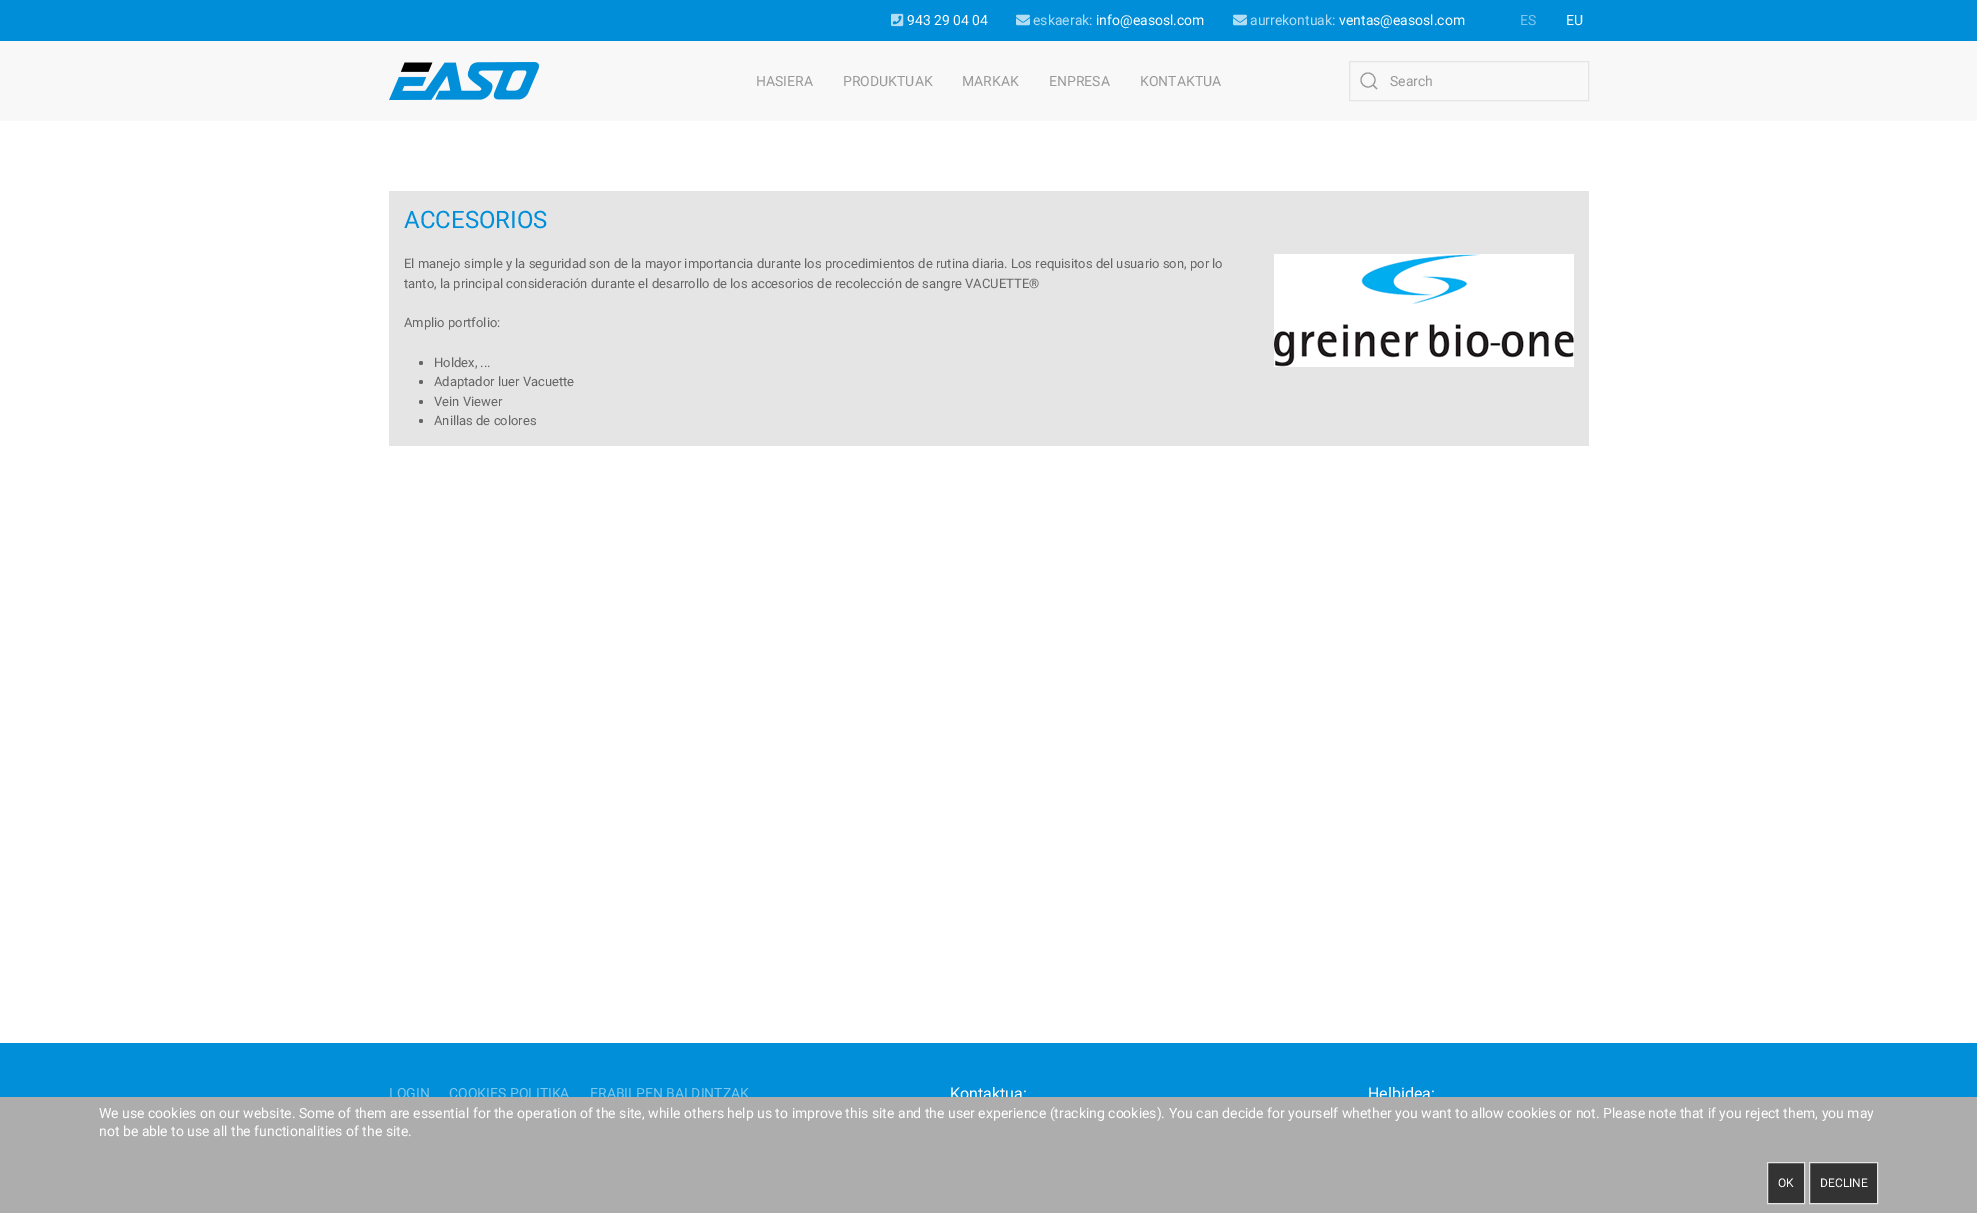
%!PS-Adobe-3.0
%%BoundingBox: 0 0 1977 1213
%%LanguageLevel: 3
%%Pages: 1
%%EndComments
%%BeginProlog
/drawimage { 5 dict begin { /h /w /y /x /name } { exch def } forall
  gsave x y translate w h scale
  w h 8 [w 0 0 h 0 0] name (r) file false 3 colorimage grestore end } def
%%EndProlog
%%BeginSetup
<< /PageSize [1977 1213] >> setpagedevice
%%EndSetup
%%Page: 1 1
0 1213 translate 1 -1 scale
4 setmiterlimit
1 setgray
0 0 1977 1213 rectfill
0.004 0.557 0.847 setrgbcolor
0 0 1977 41 rectfill
(images/1.raw) 891 13 13 14 drawimage
(images/2.raw) 1016 14 14 12 drawimage
(images/2.raw) 1233 14 14 12 drawimage
0.973 setgray
0 41 1977 80 rectfill
(images/3.raw) 389 62 150 38 drawimage
0.898 setgray
1349.5 61.5 239 39 rectstroke
0.6 setgray
1.1 setlinewidth
newpath 1368 80 7 0 360 arc closepath stroke
newpath 1373 85 moveto 1377 89 lineto closepath stroke
0.898 setgray
389 191 1200 255 rectfill
(images/4.raw) 1274 254 300 113 drawimage
0.4 setgray
newpath 421 363 2 0 360 arc closepath fill
newpath 421 382 2 0 360 arc closepath fill
newpath 421 402 2 0 360 arc closepath fill
newpath 421 421 2 0 360 arc closepath fill
0.004 0.561 0.851 setrgbcolor
0 1043 1977 54 rectfill
/Roboto-Regular [14 0 0 -14 0 0] selectfont
1 setgray
907 25 moveto (943 29 04 04) show
0.702 0.867 0.953 setrgbcolor
1033 25 moveto (eskaerak:) show
1 setgray
1096 25 moveto (info@easosl.com) show
0.702 0.867 0.953 setrgbcolor
1250 25 moveto (aurrekontuak:) show
1 setgray
1339 25 moveto (ventas@easosl.com) show
0.502 0.78 0.925 setrgbcolor
1520 25 moveto (ES) show
1 setgray
1566 25 moveto (EU) show
0.6 setgray
756 86 moveto (HASIERA) show
843 86 moveto (PRODUKTUAK) show
962 86 moveto (MARKAK) show
1049 86 moveto (ENPRESA) show
1140 86 moveto (KONTAKTUA) show
1390 86 moveto (Search) show
/Roboto-Regular [24 0 0 -24 0 0] selectfont
0.004 0.561 0.851 setrgbcolor
404 228 moveto (ACCESORIOS) show
/Roboto-Regular [13 0 0 -13 0 0] selectfont
0.4 setgray
404 268 moveto (El manejo simple y la seguridad son de la mayor importancia durante los procedimientos de rutina diaria. Los requisitos del usuario son, por lo) show
404 288 moveto (tanto, la principal consideración durante el desarrollo de los accesorios de recolección de sangre VACUETTE®) show
404 327 moveto (Amplio portfolio:) show
434 367 moveto (Holdex, ...) show
434 386 moveto (Adaptador luer Vacuette) show
434 406 moveto (Vein Viewer) show
434 425 moveto (Anillas de colores) show
/Roboto-Regular [14 0 0 -14 0 0] selectfont
0.502 0.78 0.925 setrgbcolor
389 1098 moveto (LOGIN) show
449 1098 moveto (COOKIES POLITIKA) show
590 1098 moveto (ERABILPEN BALDINTZAK) show
/Roboto-Regular [16 0 0 -16 0 0] selectfont
1 setgray
950 1099 moveto (Kontaktua:) show
1368 1099 moveto (Helbidea:) show
0.678 setgray
0 1097 1977 116 rectfill
/Roboto-Regular [14 0 0 -14 0 0] selectfont
1 setgray
99 1118 moveto (We use cookies on our website. Some of them are essential for the operation of the site, while others help us to improve this site and the user experience \(tracking cookies\). You can decide for yourself whether you want to allow cookies or not. Please note that if you reject them, you may) show
99 1136 moveto (not be able to use all the functionalities of the site.) show
0.2 setgray
newpath 1767.5 1162.5 moveto 1804.5 1162.5 lineto 1804.5 1203.5 lineto 1767.5 1203.5 lineto closepath gsave fill grestore
0.898 setgray
1 setlinewidth
stroke
/Roboto-Regular [12 0 0 -12 0 0] selectfont
1 setgray
1778 1187 moveto (OK) show
0.2 setgray
newpath 1809.5 1162.5 moveto 1877.5 1162.5 lineto 1877.5 1203.5 lineto 1809.5 1203.5 lineto closepath gsave fill grestore
0.898 setgray
stroke
1 setgray
1820 1187 moveto (DECLINE) show
showpage
%%EOF
